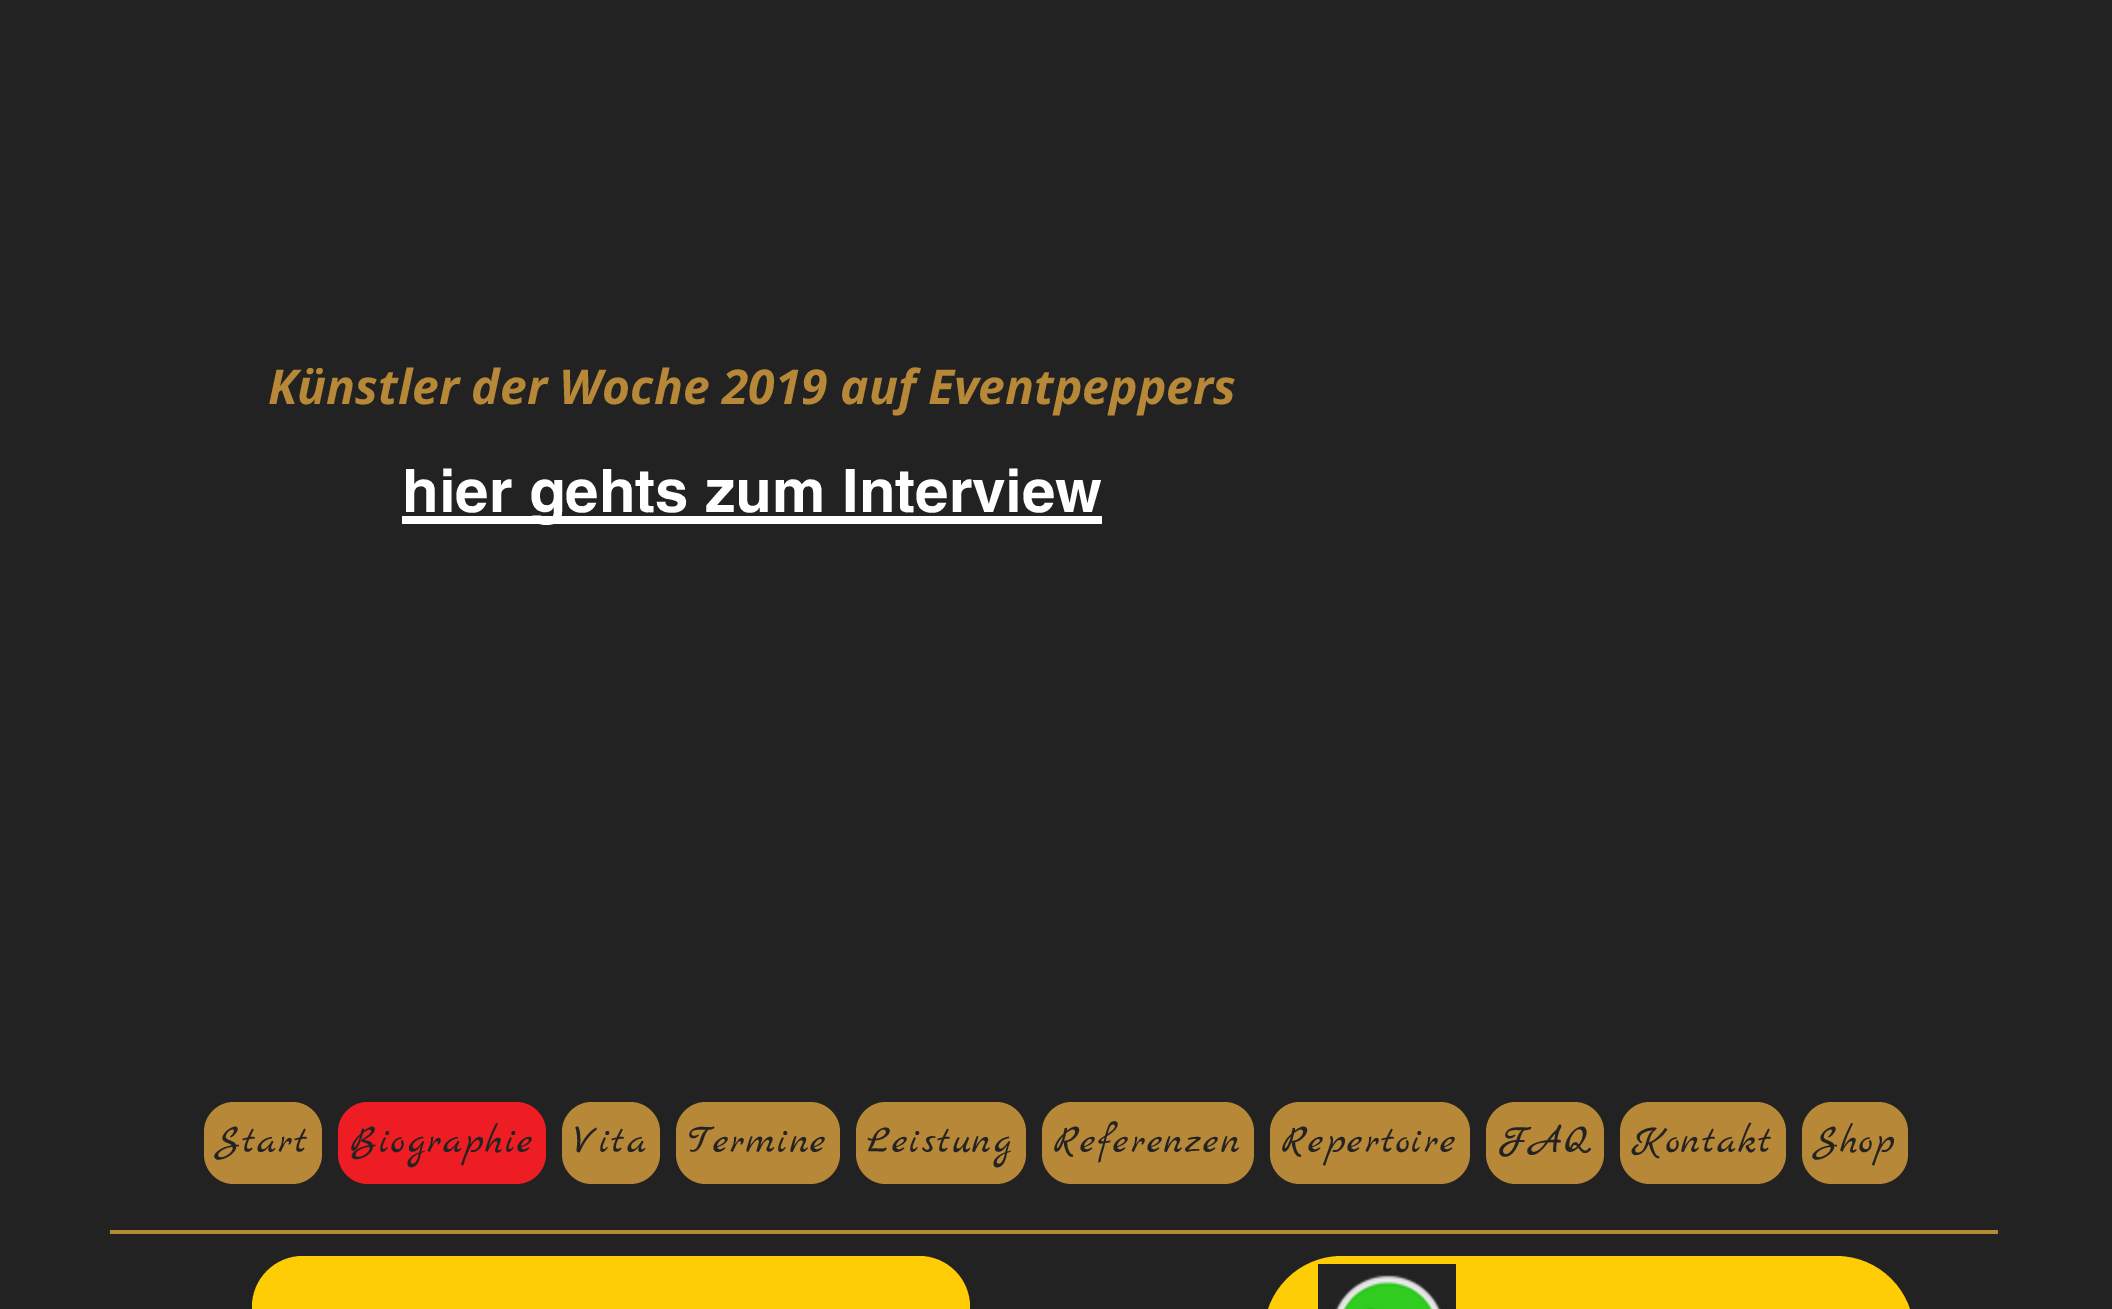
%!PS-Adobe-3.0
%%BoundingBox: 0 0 2112 1309
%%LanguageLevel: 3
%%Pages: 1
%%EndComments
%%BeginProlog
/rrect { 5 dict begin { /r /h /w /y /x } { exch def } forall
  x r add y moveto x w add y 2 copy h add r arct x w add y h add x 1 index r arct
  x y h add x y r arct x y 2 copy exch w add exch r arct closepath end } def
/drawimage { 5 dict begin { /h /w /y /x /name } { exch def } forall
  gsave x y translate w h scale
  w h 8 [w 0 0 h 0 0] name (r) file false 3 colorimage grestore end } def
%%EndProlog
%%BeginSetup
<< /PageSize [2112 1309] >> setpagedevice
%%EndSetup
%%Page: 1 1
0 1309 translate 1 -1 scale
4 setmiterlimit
0.137 0.133 0.133 setrgbcolor
0 0 2112 1309 rectfill
1 setgray
402 516 700 8 rectfill
0.718 0.533 0.216 setrgbcolor
204 1102 118 82 30 rrect fill
0.929 0.114 0.137 setrgbcolor
338 1102 208 82 30 rrect fill
0.718 0.533 0.216 setrgbcolor
562 1102 98 82 30 rrect fill
676 1102 164 82 30 rrect fill
856 1102 170 82 30 rrect fill
1042 1102 212 82 30 rrect fill
1270 1102 200 82 30 rrect fill
1486 1102 118 82 30 rrect fill
1620 1102 166 82 30 rrect fill
1802 1102 106 82 30 rrect fill
110 1230 1888 4 rectfill
1 0.804 0.02 setrgbcolor
252 1256 718 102 51 rrect fill
1264 1256 650 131 78 rrect fill
0.137 0.133 0.133 setrgbcolor
1318 1264 138 45 rectfill
(images/1.raw) 1335 1275 106 34 drawimage
/OpenSans-BoldItalic [48 0 0 -48 0 0] selectfont
0.718 0.533 0.216 setrgbcolor
268 404 moveto (Künstler der Woche 2019 auf Eventpeppers) show
/helvetica-Bold [60 0 0 -60 0 0] selectfont
1 setgray
402 512 moveto (hier gehts zum Interview) show
/MarckScript-Regular [40 0 0 -40 0 0] selectfont
0.141 0.137 0.137 setrgbcolor
215 1152 moveto 2 0 (Start) ashow
350 1152 moveto 2 0 (Biographie) ashow
574 1152 moveto 2 0 (Vita) ashow
688 1152 moveto 2 0 (Termine) ashow
867 1152 moveto 2 0 (Leistung) ashow
1053 1152 moveto 2 0 (Referenzen) ashow
1281 1152 moveto 2 0 (Repertoire) ashow
1498 1152 moveto 2 0 (FAQ) ashow
1632 1152 moveto 2 0 (Kontakt) ashow
1813 1152 moveto 2 0 (Shop) ashow
showpage
%%EOF
